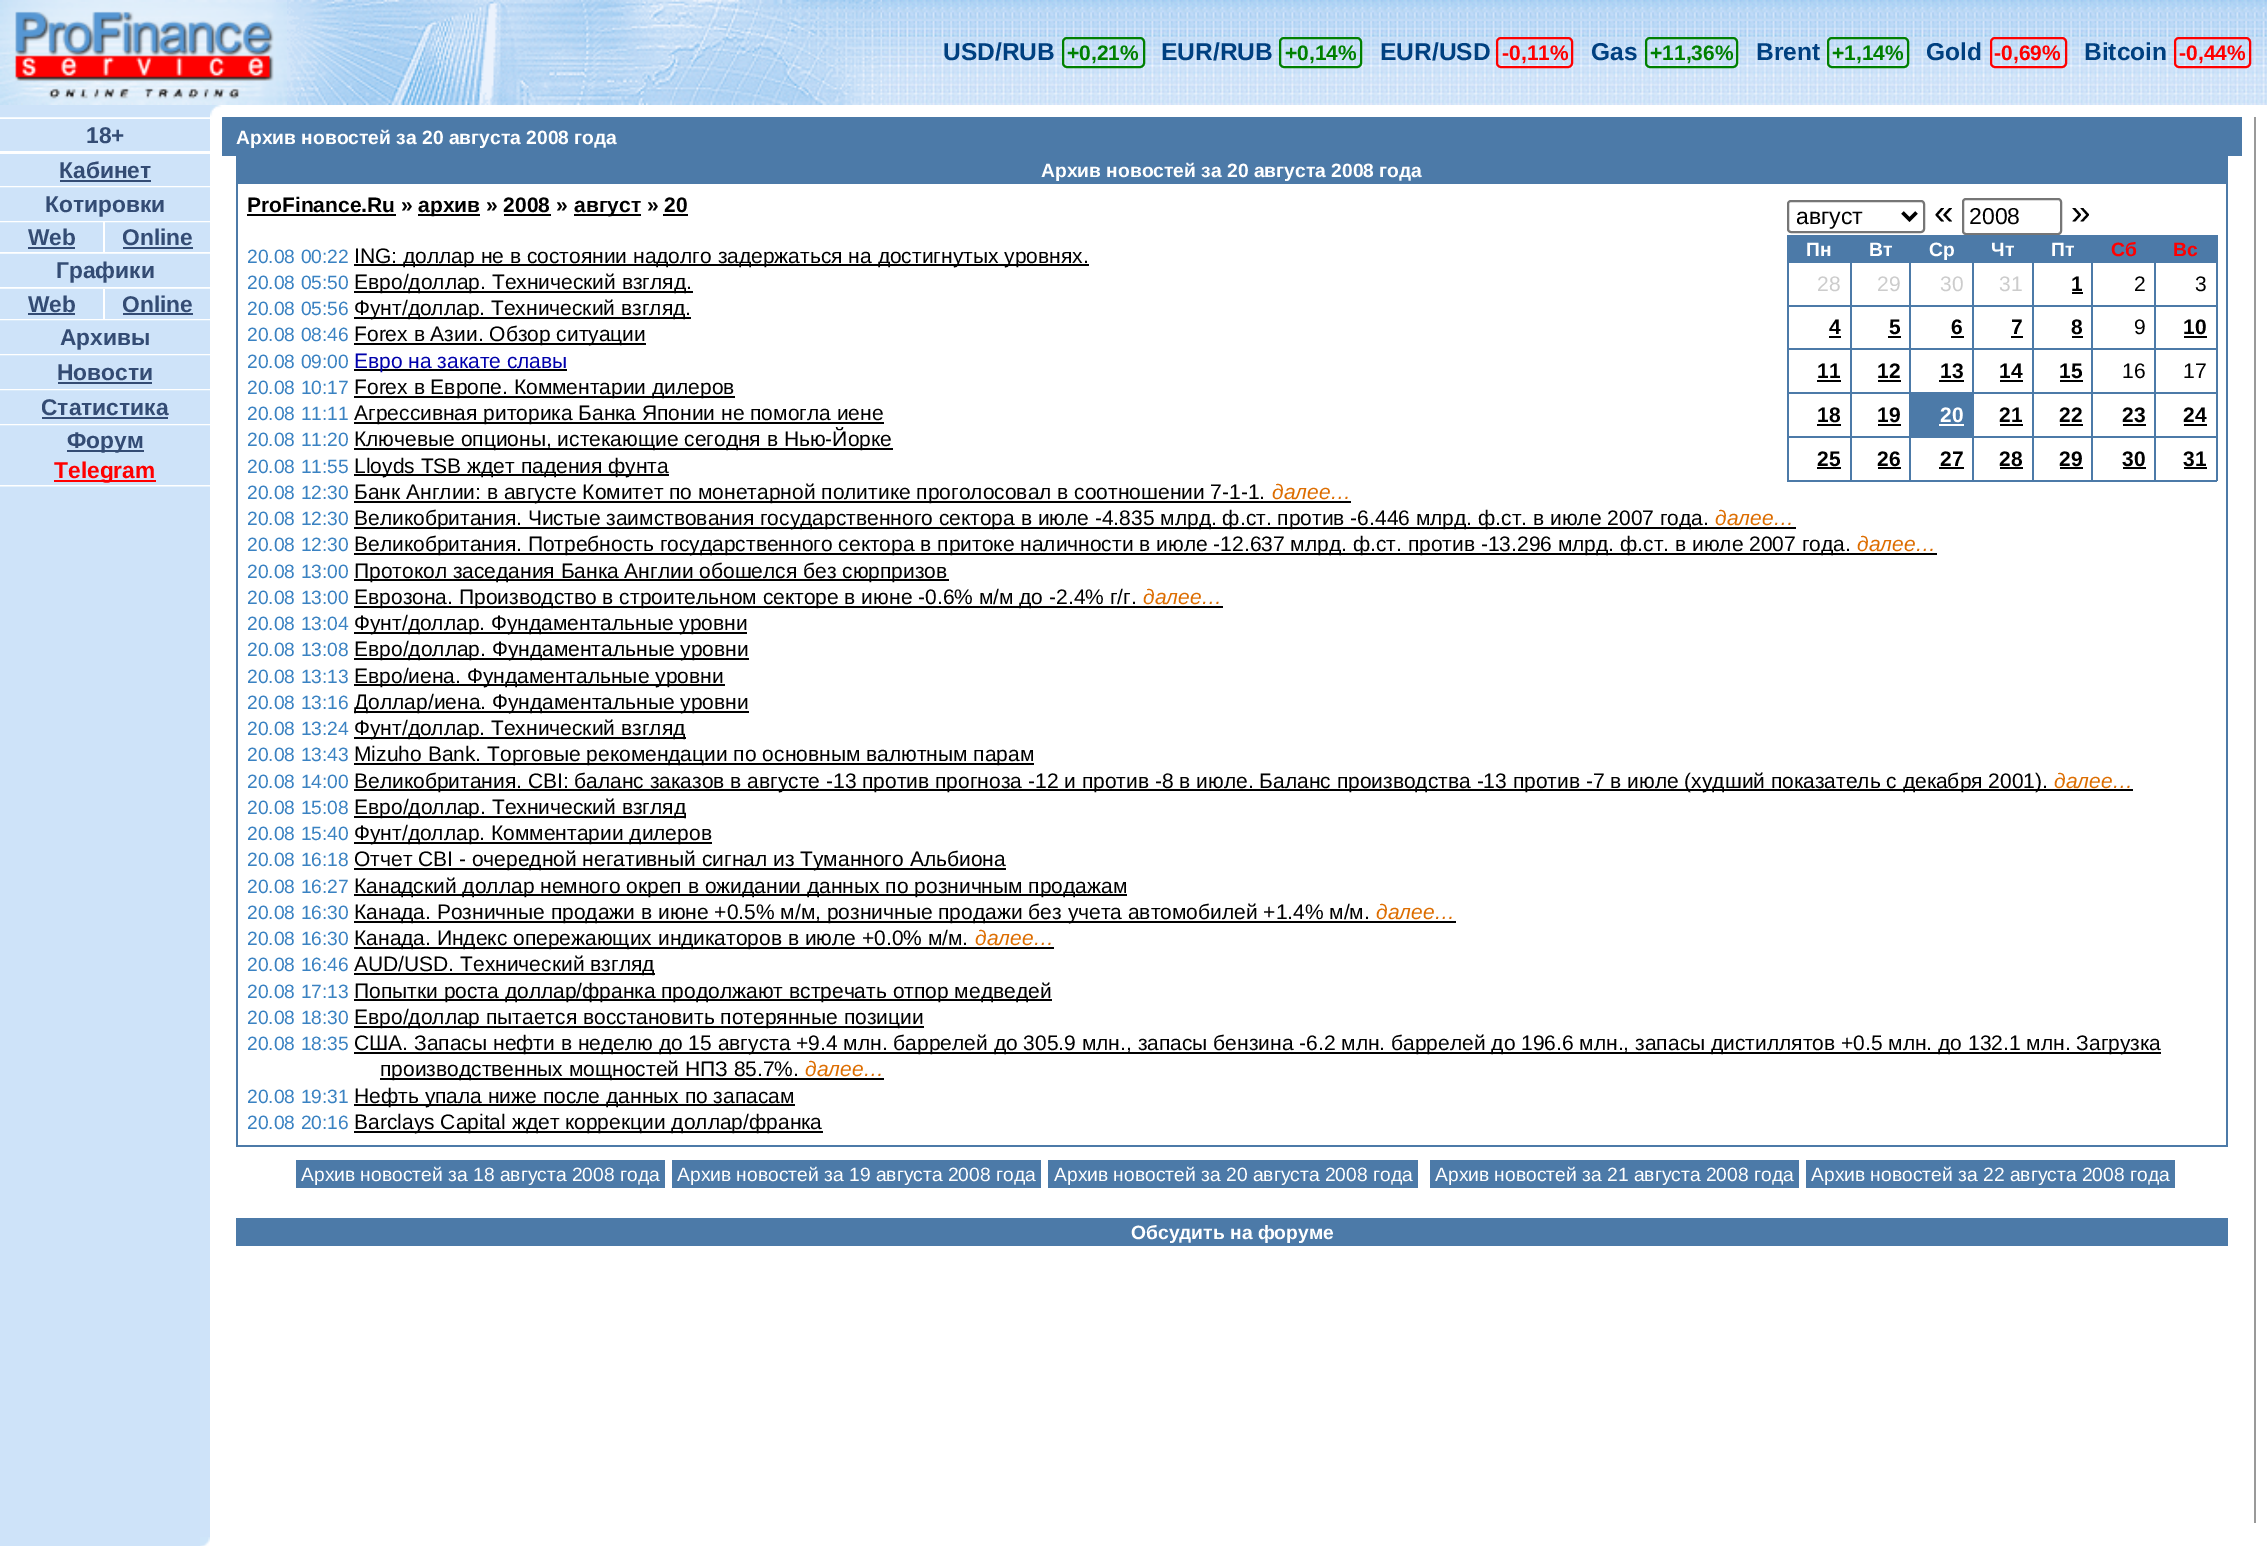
%!PS-Adobe-3.0
%%BoundingBox: 0 0 2267 1546
%%LanguageLevel: 3
%%Pages: 1
%%EndComments
%%BeginProlog
/rrect { 5 dict begin { /r /h /w /y /x } { exch def } forall
  x r add y moveto x w add y 2 copy h add r arct x w add y h add x 1 index r arct
  x y h add x y r arct x y 2 copy exch w add exch r arct closepath end } def
/drawimage { 5 dict begin { /h /w /y /x /name } { exch def } forall
  gsave x y translate w h scale
  w h 8 [w 0 0 h 0 0] name (r) file false 3 colorimage grestore end } def
%%EndProlog
%%BeginSetup
<< /PageSize [2267 1546] >> setpagedevice
%%EndSetup
%%Page: 1 1
0 1546 translate 1 -1 scale
4 setmiterlimit
1 setgray
0 0 2267 1546 rectfill
0.808 0.89 0.976 setrgbcolor
276 0 11 2 rectfill
(images/1.raw) 0 0 276 2 drawimage
(images/2.raw) 0 2 287 103 drawimage
(images/3.raw) 287 0 595 105 drawimage
(images/4.raw) 882 0 1385 105 drawimage
0 0.502 0 setrgbcolor
2 setlinewidth
1063 38 81 29 4 rrect stroke
1280 38 81 29 4 rrect stroke
1 0 0 setrgbcolor
1497 38 75 29 4 rrect stroke
0 0.502 0 setrgbcolor
1646 38 91 29 4 rrect stroke
1828 38 80 29 4 rrect stroke
1 0 0 setrgbcolor
1991 38 75 29 4 rrect stroke
2175 38 75 29 4 rrect stroke
0.808 0.89 0.976 setrgbcolor
0 105 210 12 rectfill
0.953 0.976 0.996 setrgbcolor
0 117 210 1 rectfill
0.298 0.478 0.659 setrgbcolor
222 117 2020 39 rectfill
(images/5.raw) 210 105 13 13 drawimage
0.808 0.89 0.976 setrgbcolor
0 119 210 1427 rectfill
1 setgray
0 151 210 3 rectfill
0 186 210 1 rectfill
0.204 0.298 0.455 setrgbcolor
60 180 91 2 rectfill
0.855 0.922 0.98 setrgbcolor
0 187 210 1 rectfill
1 setgray
0 221 210 1 rectfill
0.855 0.922 0.98 setrgbcolor
0 222 210 1 rectfill
1 setgray
103 222 2 32 rectfill
0 252 210 1 rectfill
0.204 0.298 0.455 setrgbcolor
28 247 47 2 rectfill
123 247 70 2 rectfill
0.953 0.976 0.996 setrgbcolor
0 253 210 1 rectfill
1 setgray
0 287 210 1 rectfill
0.953 0.976 0.996 setrgbcolor
0 288 210 1 rectfill
1 setgray
103 289 2 31 rectfill
0 319 210 1 rectfill
0.204 0.298 0.455 setrgbcolor
28 313 47 2 rectfill
123 313 70 2 rectfill
0.855 0.922 0.98 setrgbcolor
0 320 210 1 rectfill
1 setgray
0 354 210 1 rectfill
0.855 0.922 0.98 setrgbcolor
0 355 210 1 rectfill
1 setgray
0 389 210 1 rectfill
0.204 0.298 0.455 setrgbcolor
58 382 94 2 rectfill
0.855 0.922 0.98 setrgbcolor
0 390 210 1 rectfill
1 setgray
0 424 210 1 rectfill
0.204 0.298 0.455 setrgbcolor
42 417 126 2 rectfill
0.855 0.922 0.98 setrgbcolor
0 425 210 1 rectfill
0.204 0.298 0.455 setrgbcolor
67 450 77 2 rectfill
1 0 0 setrgbcolor
54 480 102 2 rectfill
1 setgray
0 485 210 1 rectfill
0.902 0.949 0.988 setrgbcolor
0 486 210 1 rectfill
0.298 0.478 0.659 setrgbcolor
236 156 1992 2 rectfill
236 156 2 990 rectfill
238 158 1990 26 rectfill
2226 182 2 964 rectfill
236 1145 1992 2 rectfill
0 setgray
247 214 149 2 rectfill
418 214 62 2 rectfill
574 214 67 2 rectfill
504 214 47 2 rectfill
663 214 25 2 rectfill
0.463 setgray
1788 201 136 31 3 rrect stroke
0 setgray
3.5 setlinewidth
newpath 1902.5 212.5 moveto 1909.5 219.5 lineto 1916.5 212.5 lineto stroke
0.463 setgray
2 setlinewidth
1963 199 98 35 3 rrect stroke
0.298 0.478 0.659 setrgbcolor
1787 235 430 2 rectfill
1787 235 2 246 rectfill
1789 237 427 26 rectfill
2216 235 2 246 rectfill
2154 480 63 2 rectfill
2154 436 2 45 rectfill
2154 436 63 2 rectfill
2154 392 2 46 rectfill
2154 392 63 2 rectfill
2154 348 2 46 rectfill
2154 348 63 2 rectfill
2154 305 2 45 rectfill
2154 305 63 2 rectfill
2154 261 2 45 rectfill
2091 480 65 2 rectfill
2091 436 2 45 rectfill
2091 436 65 2 rectfill
2091 392 2 46 rectfill
2091 392 65 2 rectfill
2091 348 2 46 rectfill
2091 348 65 2 rectfill
2091 305 2 45 rectfill
2091 305 65 2 rectfill
2091 261 2 45 rectfill
2032 480 61 2 rectfill
2032 436 2 45 rectfill
2032 436 61 2 rectfill
2032 392 2 46 rectfill
2032 392 61 2 rectfill
2032 348 2 46 rectfill
2032 348 61 2 rectfill
2032 305 2 45 rectfill
2032 305 61 2 rectfill
2032 261 2 45 rectfill
1972 480 62 2 rectfill
1972 436 2 45 rectfill
1972 436 62 2 rectfill
1972 392 2 46 rectfill
1972 392 62 2 rectfill
1972 348 2 46 rectfill
1972 348 62 2 rectfill
1972 305 2 45 rectfill
1972 305 62 2 rectfill
1972 261 2 45 rectfill
1909 480 65 2 rectfill
1909 392 2 89 rectfill
1909 392 65 2 rectfill
1909 348 2 46 rectfill
1909 348 65 2 rectfill
1909 305 2 45 rectfill
1909 305 65 2 rectfill
1909 261 2 45 rectfill
1850 480 61 2 rectfill
1850 436 2 45 rectfill
1850 436 61 2 rectfill
1850 392 2 46 rectfill
1850 392 61 2 rectfill
1850 348 2 46 rectfill
1850 348 61 2 rectfill
1850 305 2 45 rectfill
1850 305 61 2 rectfill
1850 261 2 45 rectfill
1787 305 65 2 rectfill
0 setgray
2072 292 11 2 rectfill
0.298 0.478 0.659 setrgbcolor
1787 348 65 2 rectfill
0 setgray
1829 336 12 2 rectfill
1888 336 13 2 rectfill
1951 336 13 2 rectfill
2011 336 12 2 rectfill
2072 336 11 2 rectfill
2184 336 23 2 rectfill
0.298 0.478 0.659 setrgbcolor
1787 392 65 2 rectfill
0 setgray
1817 380 24 2 rectfill
1878 380 23 2 rectfill
1939 380 25 2 rectfill
2000 380 23 2 rectfill
2060 380 23 2 rectfill
0.298 0.478 0.659 setrgbcolor
1787 436 65 2 rectfill
0 setgray
1817 424 24 2 rectfill
1878 424 23 2 rectfill
0.298 0.478 0.659 setrgbcolor
1911 394 61 44 rectfill
1 setgray
1939 424 25 2 rectfill
0 setgray
2000 424 23 2 rectfill
2060 424 23 2 rectfill
2123 424 23 2 rectfill
2184 424 23 2 rectfill
0.298 0.478 0.659 setrgbcolor
1787 480 65 2 rectfill
0 setgray
1817 467 24 2 rectfill
1878 467 23 2 rectfill
1939 467 25 2 rectfill
2000 467 23 2 rectfill
2060 467 23 2 rectfill
2123 467 23 2 rectfill
2184 467 23 2 rectfill
354 264 735 2 rectfill
354 291 339 2 rectfill
354 317 337 2 rectfill
354 343 292 2 rectfill
354 369 213 2 rectfill
354 396 381 2 rectfill
354 422 530 2 rectfill
354 448 539 2 rectfill
354 474 315 2 rectfill
354 501 997 2 rectfill
354 527 1442 2 rectfill
354 553 1583 2 rectfill
354 579 595 2 rectfill
354 606 869 2 rectfill
354 632 393 2 rectfill
354 658 395 2 rectfill
354 684 371 2 rectfill
354 711 395 2 rectfill
354 737 332 2 rectfill
354 763 680 2 rectfill
354 789 1779 2 rectfill
354 816 332 2 rectfill
354 842 358 2 rectfill
354 868 652 2 rectfill
354 894 773 2 rectfill
354 921 1102 2 rectfill
354 947 700 2 rectfill
354 973 301 2 rectfill
354 999 698 2 rectfill
354 1026 570 2 rectfill
354 1052 1807 2 rectfill
380 1078 504 2 rectfill
354 1104 441 2 rectfill
354 1131 469 2 rectfill
0.298 0.478 0.659 setrgbcolor
296 1160 369 28 rectfill
672 1160 369 28 rectfill
1048 1160 370 28 rectfill
1430 1160 369 28 rectfill
1806 1160 369 28 rectfill
236 1218 1992 2 rectfill
236 1218 2 28 rectfill
238 1220 1990 26 rectfill
0.6 setgray
2254 117 2 1406 rectfill
(images/6.raw) 200 1537 10 9 drawimage
/LiberationSans-Bold [24.5 0 0 -24.5 0 0] selectfont
0 0.251 0.502 setrgbcolor
943 60 moveto (USD/RUB) show
/LiberationSans-Bold [21 0 0 -21 0 0] selectfont
0 0.502 0 setrgbcolor
1067 60 moveto (+0,21%) show
/LiberationSans-Bold [24.5 0 0 -24.5 0 0] selectfont
0 0.251 0.502 setrgbcolor
1161 60 moveto (EUR/RUB) show
/LiberationSans-Bold [21 0 0 -21 0 0] selectfont
0 0.502 0 setrgbcolor
1285 60 moveto (+0,14%) show
/LiberationSans-Bold [24.5 0 0 -24.5 0 0] selectfont
0 0.251 0.502 setrgbcolor
1380 60 moveto (EUR/USD) show
/LiberationSans-Bold [21 0 0 -21 0 0] selectfont
1 0 0 setrgbcolor
1502 60 moveto (-0,11%) show
/LiberationSans-Bold [24.5 0 0 -24.5 0 0] selectfont
0 0.251 0.502 setrgbcolor
1591 60 moveto (Gas) show
/LiberationSans-Bold [21 0 0 -21 0 0] selectfont
0 0.502 0 setrgbcolor
1650 60 moveto (+11,36%) show
/LiberationSans-Bold [24.5 0 0 -24.5 0 0] selectfont
0 0.251 0.502 setrgbcolor
1756 60 moveto (Brent) show
/LiberationSans-Bold [21 0 0 -21 0 0] selectfont
0 0.502 0 setrgbcolor
1832 60 moveto (+1,14%) show
/LiberationSans-Bold [24.5 0 0 -24.5 0 0] selectfont
0 0.251 0.502 setrgbcolor
1926 60 moveto (Gold) show
/LiberationSans-Bold [21 0 0 -21 0 0] selectfont
1 0 0 setrgbcolor
1994 60 moveto (-0,69%) show
/LiberationSans-Bold [24.5 0 0 -24.5 0 0] selectfont
0 0.251 0.502 setrgbcolor
2084 60 moveto (Bitcoin) show
/LiberationSans-Bold [21 0 0 -21 0 0] selectfont
1 0 0 setrgbcolor
2179 60 moveto (-0,44%) show
/LiberationSans-Bold [22.75 0 0 -22.75 0 0] selectfont
0.204 0.298 0.455 setrgbcolor
86 143 moveto (18+) show
59 178 moveto (Кабинет) show
45 212 moveto (Котировки) show
28 245 moveto (Web) show
122 245 moveto (Online) show
56 278 moveto (Графики) show
28 312 moveto (Web) show
122 312 moveto (Online) show
60 345 moveto (Архивы) show
57 380 moveto (Новости) show
41 415 moveto (Статистика) show
67 448 moveto (Форум) show
1 0 0 setrgbcolor
54 478 moveto (Telegram) show
/LiberationSans-Bold [19.25 0 0 -19.25 0 0] selectfont
1 setgray
236 144 moveto (Архив новостей за 20 августа 2008 года) show
1041 177 moveto (Архив новостей за 20 августа 2008 года) show
/LiberationSans-Bold [21 0 0 -21 0 0] selectfont
0 setgray
247 212 moveto (ProFinance.Ru ») show
418 212 moveto (архив » 2008 ») show
574 212 moveto (август » 20) show
/LiberationSans-Regular [23 0 0 -23 0 0] selectfont
1796 224 moveto (август) show
/LiberationSans-Regular [35 0 0 -35 0 0] selectfont
1934 224 moveto («) show
/LiberationSans-Regular [23 0 0 -23 0 0] selectfont
1969 224 moveto (2008) show
/LiberationSans-Regular [35 0 0 -35 0 0] selectfont
2071 224 moveto (») show
/LiberationSans-Bold [19.25 0 0 -19.25 0 0] selectfont
1 setgray
1806 256 moveto (Пн) show
1869 256 moveto (Вт) show
1929 256 moveto (Ср) show
1991 256 moveto (Чт) show
2051 256 moveto (Пт) show
1 0 0 setrgbcolor
2111 256 moveto (Сб) show
2173 256 moveto (Вс) show
/LiberationSans-Regular [21 0 0 -21 0 0] selectfont
0.8 setgray
1817 291 moveto (28) show
1877 291 moveto (29) show
1940 291 moveto (30) show
1999 291 moveto (31) show
/LiberationSans-Bold [21 0 0 -21 0 0] selectfont
0 setgray
2071 291 moveto (1) show
/LiberationSans-Regular [21 0 0 -21 0 0] selectfont
2134 291 moveto (2) show
2195 291 moveto (3) show
/LiberationSans-Bold [21 0 0 -21 0 0] selectfont
1829 334 moveto (4) show
1889 334 moveto (5) show
1951 334 moveto (6) show
2011 334 moveto (7) show
2071 334 moveto (8) show
/LiberationSans-Regular [21 0 0 -21 0 0] selectfont
2134 334 moveto (9) show
/LiberationSans-Bold [21 0 0 -21 0 0] selectfont
2183 334 moveto (10) show
1817 378 moveto (11) show
1877 378 moveto (12) show
1940 378 moveto (13) show
1999 378 moveto (14) show
2059 378 moveto (15) show
/LiberationSans-Regular [21 0 0 -21 0 0] selectfont
2122 378 moveto (16) show
2183 378 moveto (17) show
/LiberationSans-Bold [21 0 0 -21 0 0] selectfont
1817 422 moveto (18) show
1877 422 moveto (19) show
1 setgray
1940 422 moveto (20) show
0 setgray
1999 422 moveto (21) show
2059 422 moveto (22) show
2122 422 moveto (23) show
2183 422 moveto (24) show
1817 466 moveto (25) show
1877 466 moveto (26) show
1940 466 moveto (27) show
1999 466 moveto (28) show
2059 466 moveto (29) show
2122 466 moveto (30) show
2183 466 moveto (31) show
/LiberationSans-Regular [19.25 0 0 -19.25 0 0] selectfont
0.227 0.51 0.761 setrgbcolor
247 263 moveto (20.08 00:22) show
/LiberationSans-Regular [21 0 0 -21 0 0] selectfont
0 setgray
354 263 moveto (ING: доллар не в состоянии надолго задержаться на достигнутых уровнях.) show
/LiberationSans-Regular [19.25 0 0 -19.25 0 0] selectfont
0.227 0.51 0.761 setrgbcolor
247 289 moveto (20.08 05:50) show
/LiberationSans-Regular [21 0 0 -21 0 0] selectfont
0 setgray
354 289 moveto (Евро/доллар. Технический взгляд.) show
/LiberationSans-Regular [19.25 0 0 -19.25 0 0] selectfont
0.227 0.51 0.761 setrgbcolor
247 315 moveto (20.08 05:56) show
/LiberationSans-Regular [21 0 0 -21 0 0] selectfont
0 setgray
354 315 moveto (Фунт/доллар. Технический взгляд.) show
/LiberationSans-Regular [19.25 0 0 -19.25 0 0] selectfont
0.227 0.51 0.761 setrgbcolor
247 341 moveto (20.08 08:46) show
/LiberationSans-Regular [21 0 0 -21 0 0] selectfont
0 setgray
354 341 moveto (Forex в Азии. Обзор ситуации) show
/LiberationSans-Regular [19.25 0 0 -19.25 0 0] selectfont
0.227 0.51 0.761 setrgbcolor
247 368 moveto (20.08 09:00) show
/LiberationSans-Regular [21 0 0 -21 0 0] selectfont
0 0 0.675 setrgbcolor
354 368 moveto (Евро на закате славы) show
/LiberationSans-Regular [19.25 0 0 -19.25 0 0] selectfont
0.227 0.51 0.761 setrgbcolor
247 394 moveto (20.08 10:17) show
/LiberationSans-Regular [21 0 0 -21 0 0] selectfont
0 setgray
354 394 moveto (Forex в Европе. Комментарии дилеров) show
/LiberationSans-Regular [19.25 0 0 -19.25 0 0] selectfont
0.227 0.51 0.761 setrgbcolor
247 420 moveto (20.08 11:11) show
/LiberationSans-Regular [21 0 0 -21 0 0] selectfont
0 setgray
354 420 moveto (Агрессивная риторика Банка Японии не помогла иене) show
/LiberationSans-Regular [19.25 0 0 -19.25 0 0] selectfont
0.227 0.51 0.761 setrgbcolor
247 446 moveto (20.08 11:20) show
/LiberationSans-Regular [21 0 0 -21 0 0] selectfont
0 setgray
354 446 moveto (Ключевые опционы, истекающие сегодня в Нью-Йорке) show
/LiberationSans-Regular [19.25 0 0 -19.25 0 0] selectfont
0.227 0.51 0.761 setrgbcolor
247 473 moveto (20.08 11:55) show
/LiberationSans-Regular [21 0 0 -21 0 0] selectfont
0 setgray
354 473 moveto (Lloyds TSB ждет падения фунта) show
/LiberationSans-Regular [19.25 0 0 -19.25 0 0] selectfont
0.227 0.51 0.761 setrgbcolor
247 499 moveto (20.08 12:30) show
/LiberationSans-Regular [21 0 0 -21 0 0] selectfont
0 setgray
354 499 moveto (Банк Англии: в августе Комитет по монетарной политике проголосовал в соотношении 7-1-1.) show
/LiberationSans-Italic [21 0 0 -21 0 0] selectfont
0.867 0.427 0 setrgbcolor
1272 499 moveto (далее…) show
/LiberationSans-Regular [19.25 0 0 -19.25 0 0] selectfont
0.227 0.51 0.761 setrgbcolor
247 525 moveto (20.08 12:30) show
/LiberationSans-Regular [21 0 0 -21 0 0] selectfont
0 setgray
354 525 moveto (Великобритания. Чистые заимствования государственного сектора в июле -4.835 млрд. ф.ст. против -6.446 млрд. ф.ст. в июле 2007 года.) show
/LiberationSans-Italic [21 0 0 -21 0 0] selectfont
0.867 0.427 0 setrgbcolor
1715 525 moveto (далее…) show
/LiberationSans-Regular [19.25 0 0 -19.25 0 0] selectfont
0.227 0.51 0.761 setrgbcolor
247 551 moveto (20.08 12:30) show
/LiberationSans-Regular [21 0 0 -21 0 0] selectfont
0 setgray
354 551 moveto (Великобритания. Потребность государственного сектора в притоке наличности в июле -12.637 млрд. ф.ст. против -13.296 млрд. ф.ст. в июле 2007 года.) show
/LiberationSans-Italic [21 0 0 -21 0 0] selectfont
0.867 0.427 0 setrgbcolor
1857 551 moveto (далее…) show
/LiberationSans-Regular [19.25 0 0 -19.25 0 0] selectfont
0.227 0.51 0.761 setrgbcolor
247 578 moveto (20.08 13:00) show
/LiberationSans-Regular [21 0 0 -21 0 0] selectfont
0 setgray
354 578 moveto (Протокол заседания Банка Англии обошелся без сюрпризов) show
/LiberationSans-Regular [19.25 0 0 -19.25 0 0] selectfont
0.227 0.51 0.761 setrgbcolor
247 604 moveto (20.08 13:00) show
/LiberationSans-Regular [21 0 0 -21 0 0] selectfont
0 setgray
354 604 moveto (Еврозона. Производство в строительном секторе в июне -0.6% м/м до -2.4% г/г.) show
/LiberationSans-Italic [21 0 0 -21 0 0] selectfont
0.867 0.427 0 setrgbcolor
1143 604 moveto (далее…) show
/LiberationSans-Regular [19.25 0 0 -19.25 0 0] selectfont
0.227 0.51 0.761 setrgbcolor
247 630 moveto (20.08 13:04) show
/LiberationSans-Regular [21 0 0 -21 0 0] selectfont
0 setgray
354 630 moveto (Фунт/доллар. Фундаментальные уровни) show
/LiberationSans-Regular [19.25 0 0 -19.25 0 0] selectfont
0.227 0.51 0.761 setrgbcolor
247 656 moveto (20.08 13:08) show
/LiberationSans-Regular [21 0 0 -21 0 0] selectfont
0 setgray
354 656 moveto (Евро/доллар. Фундаментальные уровни) show
/LiberationSans-Regular [19.25 0 0 -19.25 0 0] selectfont
0.227 0.51 0.761 setrgbcolor
247 683 moveto (20.08 13:13) show
/LiberationSans-Regular [21 0 0 -21 0 0] selectfont
0 setgray
354 683 moveto (Евро/иена. Фундаментальные уровни) show
/LiberationSans-Regular [19.25 0 0 -19.25 0 0] selectfont
0.227 0.51 0.761 setrgbcolor
247 709 moveto (20.08 13:16) show
/LiberationSans-Regular [21 0 0 -21 0 0] selectfont
0 setgray
354 709 moveto (Доллар/иена. Фундаментальные уровни) show
/LiberationSans-Regular [19.25 0 0 -19.25 0 0] selectfont
0.227 0.51 0.761 setrgbcolor
247 735 moveto (20.08 13:24) show
/LiberationSans-Regular [21 0 0 -21 0 0] selectfont
0 setgray
354 735 moveto (Фунт/доллар. Технический взгляд) show
/LiberationSans-Regular [19.25 0 0 -19.25 0 0] selectfont
0.227 0.51 0.761 setrgbcolor
247 761 moveto (20.08 13:43) show
/LiberationSans-Regular [21 0 0 -21 0 0] selectfont
0 setgray
354 761 moveto (Mizuho Bank. Торговые рекомендации по основным валютным парам) show
/LiberationSans-Regular [19.25 0 0 -19.25 0 0] selectfont
0.227 0.51 0.761 setrgbcolor
247 788 moveto (20.08 14:00) show
/LiberationSans-Regular [21 0 0 -21 0 0] selectfont
0 setgray
354 788 moveto (Великобритания. CBI: баланс заказов в августе -13 против прогноза -12 и против -8 в июле. Баланс производства -13 против -7 в июле \(худший показатель с декабря 2001\).) show
/LiberationSans-Italic [21 0 0 -21 0 0] selectfont
0.867 0.427 0 setrgbcolor
2054 788 moveto (далее…) show
/LiberationSans-Regular [19.25 0 0 -19.25 0 0] selectfont
0.227 0.51 0.761 setrgbcolor
247 814 moveto (20.08 15:08) show
/LiberationSans-Regular [21 0 0 -21 0 0] selectfont
0 setgray
354 814 moveto (Евро/доллар. Технический взгляд) show
/LiberationSans-Regular [19.25 0 0 -19.25 0 0] selectfont
0.227 0.51 0.761 setrgbcolor
247 840 moveto (20.08 15:40) show
/LiberationSans-Regular [21 0 0 -21 0 0] selectfont
0 setgray
354 840 moveto (Фунт/доллар. Комментарии дилеров) show
/LiberationSans-Regular [19.25 0 0 -19.25 0 0] selectfont
0.227 0.51 0.761 setrgbcolor
247 866 moveto (20.08 16:18) show
/LiberationSans-Regular [21 0 0 -21 0 0] selectfont
0 setgray
354 866 moveto (Отчет CBI - очередной негативный сигнал из Туманного Альбиона) show
/LiberationSans-Regular [19.25 0 0 -19.25 0 0] selectfont
0.227 0.51 0.761 setrgbcolor
247 893 moveto (20.08 16:27) show
/LiberationSans-Regular [21 0 0 -21 0 0] selectfont
0 setgray
354 893 moveto (Канадский доллар немного окреп в ожидании данных по розничным продажам) show
/LiberationSans-Regular [19.25 0 0 -19.25 0 0] selectfont
0.227 0.51 0.761 setrgbcolor
247 919 moveto (20.08 16:30) show
/LiberationSans-Regular [21 0 0 -21 0 0] selectfont
0 setgray
354 919 moveto (Канада. Розничные продажи в июне +0.5% м/м, розничные продажи без учета автомобилей +1.4% м/м.) show
/LiberationSans-Italic [21 0 0 -21 0 0] selectfont
0.867 0.427 0 setrgbcolor
1376 919 moveto (далее…) show
/LiberationSans-Regular [19.25 0 0 -19.25 0 0] selectfont
0.227 0.51 0.761 setrgbcolor
247 945 moveto (20.08 16:30) show
/LiberationSans-Regular [21 0 0 -21 0 0] selectfont
0 setgray
354 945 moveto (Канада. Индекс опережающих индикаторов в июле +0.0% м/м.) show
/LiberationSans-Italic [21 0 0 -21 0 0] selectfont
0.867 0.427 0 setrgbcolor
975 945 moveto (далее…) show
/LiberationSans-Regular [19.25 0 0 -19.25 0 0] selectfont
0.227 0.51 0.761 setrgbcolor
247 971 moveto (20.08 16:46) show
/LiberationSans-Regular [21 0 0 -21 0 0] selectfont
0 setgray
354 971 moveto (AUD/USD. Технический взгляд) show
/LiberationSans-Regular [19.25 0 0 -19.25 0 0] selectfont
0.227 0.51 0.761 setrgbcolor
247 998 moveto (20.08 17:13) show
/LiberationSans-Regular [21 0 0 -21 0 0] selectfont
0 setgray
354 998 moveto (Попытки роста доллар/франка продолжают встречать отпор медведей) show
/LiberationSans-Regular [19.25 0 0 -19.25 0 0] selectfont
0.227 0.51 0.761 setrgbcolor
247 1024 moveto (20.08 18:30) show
/LiberationSans-Regular [21 0 0 -21 0 0] selectfont
0 setgray
354 1024 moveto (Евро/доллар пытается восстановить потерянные позиции) show
/LiberationSans-Regular [19.25 0 0 -19.25 0 0] selectfont
0.227 0.51 0.761 setrgbcolor
247 1050 moveto (20.08 18:35) show
/LiberationSans-Regular [21 0 0 -21 0 0] selectfont
0 setgray
354 1050 moveto (США. Запасы нефти в неделю до 15 августа +9.4 млн. баррелей до 305.9 млн., запасы бензина -6.2 млн. баррелей до 196.6 млн., запасы дистиллятов +0.5 млн. до 132.1 млн. Загрузка) show
380 1076 moveto (производственных мощностей НПЗ 85.7%.) show
/LiberationSans-Italic [21 0 0 -21 0 0] selectfont
0.867 0.427 0 setrgbcolor
805 1076 moveto (далее…) show
/LiberationSans-Regular [19.25 0 0 -19.25 0 0] selectfont
0.227 0.51 0.761 setrgbcolor
247 1103 moveto (20.08 19:31) show
/LiberationSans-Regular [21 0 0 -21 0 0] selectfont
0 setgray
354 1103 moveto (Нефть упала ниже после данных по запасам) show
/LiberationSans-Regular [19.25 0 0 -19.25 0 0] selectfont
0.227 0.51 0.761 setrgbcolor
247 1129 moveto (20.08 20:16) show
/LiberationSans-Regular [21 0 0 -21 0 0] selectfont
0 setgray
354 1129 moveto (Barclays Capital ждет коррекции доллар/франка) show
/LiberationSans-Regular [19.25 0 0 -19.25 0 0] selectfont
1 setgray
301 1181 moveto (Архив новостей за 18 августа 2008 года) show
677 1181 moveto (Архив новостей за 19 августа 2008 года) show
1054 1181 moveto (Архив новостей за 20 августа 2008 года) show
1435 1181 moveto (Архив новостей за 21 августа 2008 года) show
1811 1181 moveto (Архив новостей за 22 августа 2008 года) show
/LiberationSans-Bold [19.25 0 0 -19.25 0 0] selectfont
1131 1239 moveto (Обсудить на форуме) show
showpage
%%EOF
